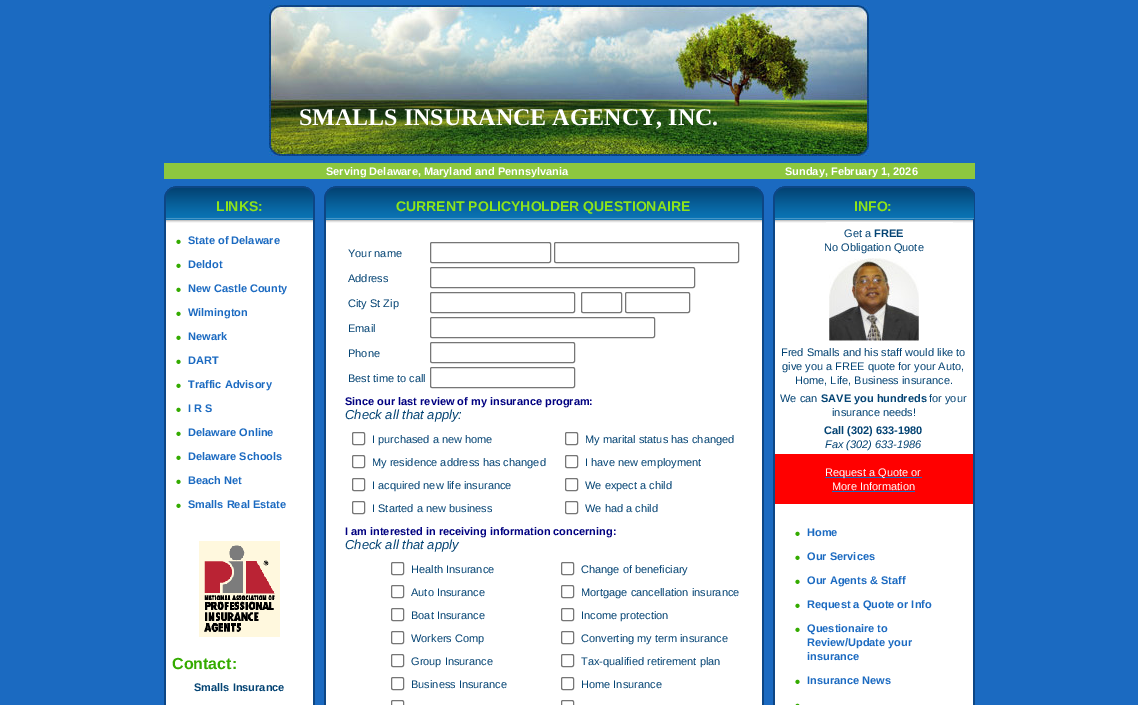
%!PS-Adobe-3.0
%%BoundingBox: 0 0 1138 705
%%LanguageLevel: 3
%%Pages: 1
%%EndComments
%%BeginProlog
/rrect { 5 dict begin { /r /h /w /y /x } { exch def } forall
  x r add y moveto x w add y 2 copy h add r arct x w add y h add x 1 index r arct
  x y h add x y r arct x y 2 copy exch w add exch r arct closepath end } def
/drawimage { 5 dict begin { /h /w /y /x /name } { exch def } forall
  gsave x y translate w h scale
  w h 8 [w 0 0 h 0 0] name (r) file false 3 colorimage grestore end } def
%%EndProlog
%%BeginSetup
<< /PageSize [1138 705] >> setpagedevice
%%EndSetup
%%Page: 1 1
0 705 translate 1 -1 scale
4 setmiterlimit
0.106 0.416 0.757 setrgbcolor
0 0 1138 705 rectfill
(images/1.raw) 269 5 600 151 drawimage
0.553 0.78 0.247 setrgbcolor
164 163 811 16 rectfill
(images/2.raw) 164 186 151 37 drawimage
(images/3.raw) 164 223 151 482 drawimage
(images/4.raw) 176 239 5 5 drawimage
(images/4.raw) 176 263 5 5 drawimage
(images/4.raw) 176 287 5 5 drawimage
(images/4.raw) 176 311 5 5 drawimage
(images/4.raw) 176 335 5 5 drawimage
(images/4.raw) 176 359 5 5 drawimage
(images/4.raw) 176 383 5 5 drawimage
(images/4.raw) 176 407 5 5 drawimage
(images/4.raw) 176 431 5 5 drawimage
(images/4.raw) 176 455 5 5 drawimage
(images/4.raw) 176 479 5 5 drawimage
(images/4.raw) 176 503 5 5 drawimage
(images/5.raw) 199 541 81 96 drawimage
(images/6.raw) 324 186 440 37 drawimage
(images/7.raw) 324 223 440 482 drawimage
0.463 setgray
430.5 242.5 120 20 1.5 rrect stroke
554.5 242.5 184 20 1.5 rrect stroke
430.5 267.5 264 20 1.5 rrect stroke
430.5 292.5 144 20 1.5 rrect stroke
581.5 292.5 40 20 1.5 rrect stroke
625.5 292.5 64 20 1.5 rrect stroke
430.5 317.5 224 20 1.5 rrect stroke
430.5 342.5 144 20 1.5 rrect stroke
430.5 367.5 144 20 1.5 rrect stroke
352.5 432.5 12 12 1.5 rrect stroke
352.5 455.5 12 12 1.5 rrect stroke
352.5 478.5 12 12 1.5 rrect stroke
352.5 501.5 12 12 1.5 rrect stroke
565.5 432.5 12 12 1.5 rrect stroke
565.5 455.5 12 12 1.5 rrect stroke
565.5 478.5 12 12 1.5 rrect stroke
565.5 501.5 12 12 1.5 rrect stroke
391.5 562.5 12 12 1.5 rrect stroke
391.5 585.5 12 12 1.5 rrect stroke
391.5 608.5 12 12 1.5 rrect stroke
391.5 631.5 12 12 1.5 rrect stroke
391.5 654.5 12 12 1.5 rrect stroke
391.5 677.5 12 12 1.5 rrect stroke
391.5 700.5 12 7 1.5 rrect stroke
561.5 562.5 12 12 1.5 rrect stroke
561.5 585.5 12 12 1.5 rrect stroke
561.5 608.5 12 12 1.5 rrect stroke
561.5 631.5 12 12 1.5 rrect stroke
561.5 654.5 12 12 1.5 rrect stroke
561.5 677.5 12 12 1.5 rrect stroke
561.5 700.5 12 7 1.5 rrect stroke
(images/8.raw) 773 186 202 37 drawimage
(images/9.raw) 773 223 202 482 drawimage
(images/10.raw) 829 258 90 83 drawimage
1 0 0 setrgbcolor
775 454 198 50 rectfill
0.106 0.416 0.757 setrgbcolor
825 477 97 1 rectfill
832 491 83 1 rectfill
(images/4.raw) 795 531 5 5 drawimage
(images/4.raw) 795 555 5 5 drawimage
(images/4.raw) 795 579 5 5 drawimage
(images/4.raw) 795 603 5 5 drawimage
(images/4.raw) 795 627 5 5 drawimage
(images/4.raw) 795 679 5 5 drawimage
(images/11.raw) 795 703 5 2 drawimage
/LiberationSerif-Bold [24 0 0 -24 0 0] selectfont
1 setgray
299 125 moveto (SMALLS INSURANCE AGENCY, INC.) show
/LiberationSans-Bold [11 0 0 -11 0 0] selectfont
326 175 moveto (Serving Delaware, Maryland and Pennsylvania) show
785 175 moveto (Sunday, February 1, 2026) show
/LiberationSans-Bold [14 0 0 -14 0 0] selectfont
0.557 0.894 0.102 setrgbcolor
216 211 moveto (LINKS:) show
/LiberationSans-Bold [11 0 0 -11 0 0] selectfont
0.106 0.416 0.757 setrgbcolor
188 244 moveto (State of Delaware) show
188 268 moveto (Deldot) show
188 292 moveto (New Castle County) show
188 316 moveto (Wilmington) show
188 340 moveto (Newark) show
188 364 moveto (DART) show
188 388 moveto (Traffic Advisory) show
188 412 moveto (I R S) show
188 436 moveto (Delaware Online) show
188 460 moveto (Delaware Schools) show
188 484 moveto (Beach Net) show
188 508 moveto (Smalls Real Estate) show
/LiberationSans-Bold [16 0 0 -16 0 0] selectfont
0.204 0.671 0 setrgbcolor
172 669 moveto (Contact:) show
/LiberationSans-Bold [11 0 0 -11 0 0] selectfont
0.012 0.263 0.451 setrgbcolor
194 691 moveto (Smalls Insurance) show
/LiberationSans-Bold [14 0 0 -14 0 0] selectfont
0.557 0.894 0.102 setrgbcolor
396 211 moveto (CURRENT POLICYHOLDER QUESTIONAIRE) show
/LiberationSans-Regular [11 0 0 -11 0 0] selectfont
0.012 0.263 0.451 setrgbcolor
348 257 moveto (Your name) show
348 282 moveto (Address) show
348 307 moveto (City St Zip) show
348 332 moveto (Email) show
348 357 moveto (Phone) show
348 382 moveto (Best time to call) show
/LiberationSans-Bold [11 0 0 -11 0 0] selectfont
0 0 0.502 setrgbcolor
345 405 moveto (Since our last review of my insurance program:) show
/LiberationSans-Italic [13 0 0 -13 0 0] selectfont
0.012 0.263 0.451 setrgbcolor
345 419 moveto (Check all that apply:) show
/LiberationSans-Regular [11 0 0 -11 0 0] selectfont
372 443 moveto (I purchased a new home) show
372 466 moveto (My residence address has changed) show
372 489 moveto (I acquired new life insurance) show
372 512 moveto (I Started a new business) show
585 443 moveto (My marital status has changed) show
585 466 moveto (I have new employment) show
585 489 moveto (We expect a child) show
585 512 moveto (We had a child) show
/LiberationSans-Bold [11 0 0 -11 0 0] selectfont
0 0 0.502 setrgbcolor
345 535 moveto (I am interested in receiving information concerning:) show
/LiberationSans-Italic [13 0 0 -13 0 0] selectfont
0.012 0.263 0.451 setrgbcolor
345 549 moveto (Check all that apply) show
/LiberationSans-Regular [11 0 0 -11 0 0] selectfont
411 573 moveto (Health Insurance) show
411 596 moveto (Auto Insurance) show
411 619 moveto (Boat Insurance) show
411 642 moveto (Workers Comp) show
411 665 moveto (Group Insurance) show
411 688 moveto (Business Insurance) show
581 573 moveto (Change of beneficiary) show
581 596 moveto (Mortgage cancellation insurance) show
581 619 moveto (Income protection) show
581 642 moveto (Converting my term insurance) show
581 665 moveto (Tax-qualified retirement plan) show
581 688 moveto (Home Insurance) show
/LiberationSans-Bold [14 0 0 -14 0 0] selectfont
0.557 0.894 0.102 setrgbcolor
854 211 moveto (INFO:) show
/LiberationSans-Regular [11 0 0 -11 0 0] selectfont
0.012 0.263 0.451 setrgbcolor
844 237 moveto (Get a) show
/LiberationSans-Bold [11 0 0 -11 0 0] selectfont
874 237 moveto (FREE) show
/LiberationSans-Regular [11 0 0 -11 0 0] selectfont
824 251 moveto (No Obligation Quote) show
781 356 moveto (Fred Smalls and his staff would like to) show
782 370 moveto (give you a FREE quote for your Auto,) show
795 384 moveto (Home, Life, Business insurance.) show
780 402 moveto (We can) show
/LiberationSans-Bold [11 0 0 -11 0 0] selectfont
821 402 moveto (SAVE you hundreds) show
/LiberationSans-Regular [11 0 0 -11 0 0] selectfont
929 402 moveto (for your) show
832 416 moveto (insurance needs!) show
/LiberationSans-Bold [11 0 0 -11 0 0] selectfont
824 434 moveto (Call \(302\) 633-1980) show
/LiberationSans-Italic [11 0 0 -11 0 0] selectfont
825 448 moveto (Fax \(302\) 633-1986) show
/LiberationSans-Regular [11 0 0 -11 0 0] selectfont
1 setgray
825 476 moveto (Request a Quote or) show
832 490 moveto (More Information) show
/LiberationSans-Bold [11 0 0 -11 0 0] selectfont
0.106 0.416 0.757 setrgbcolor
807 536 moveto (Home) show
807 560 moveto (Our Services) show
807 584 moveto (Our Agents & Staff) show
807 608 moveto (Request a Quote or Info) show
807 632 moveto (Questionaire to) show
807 646 moveto (Review/Update your) show
807 660 moveto (insurance) show
807 684 moveto (Insurance News) show
showpage
%%EOF
